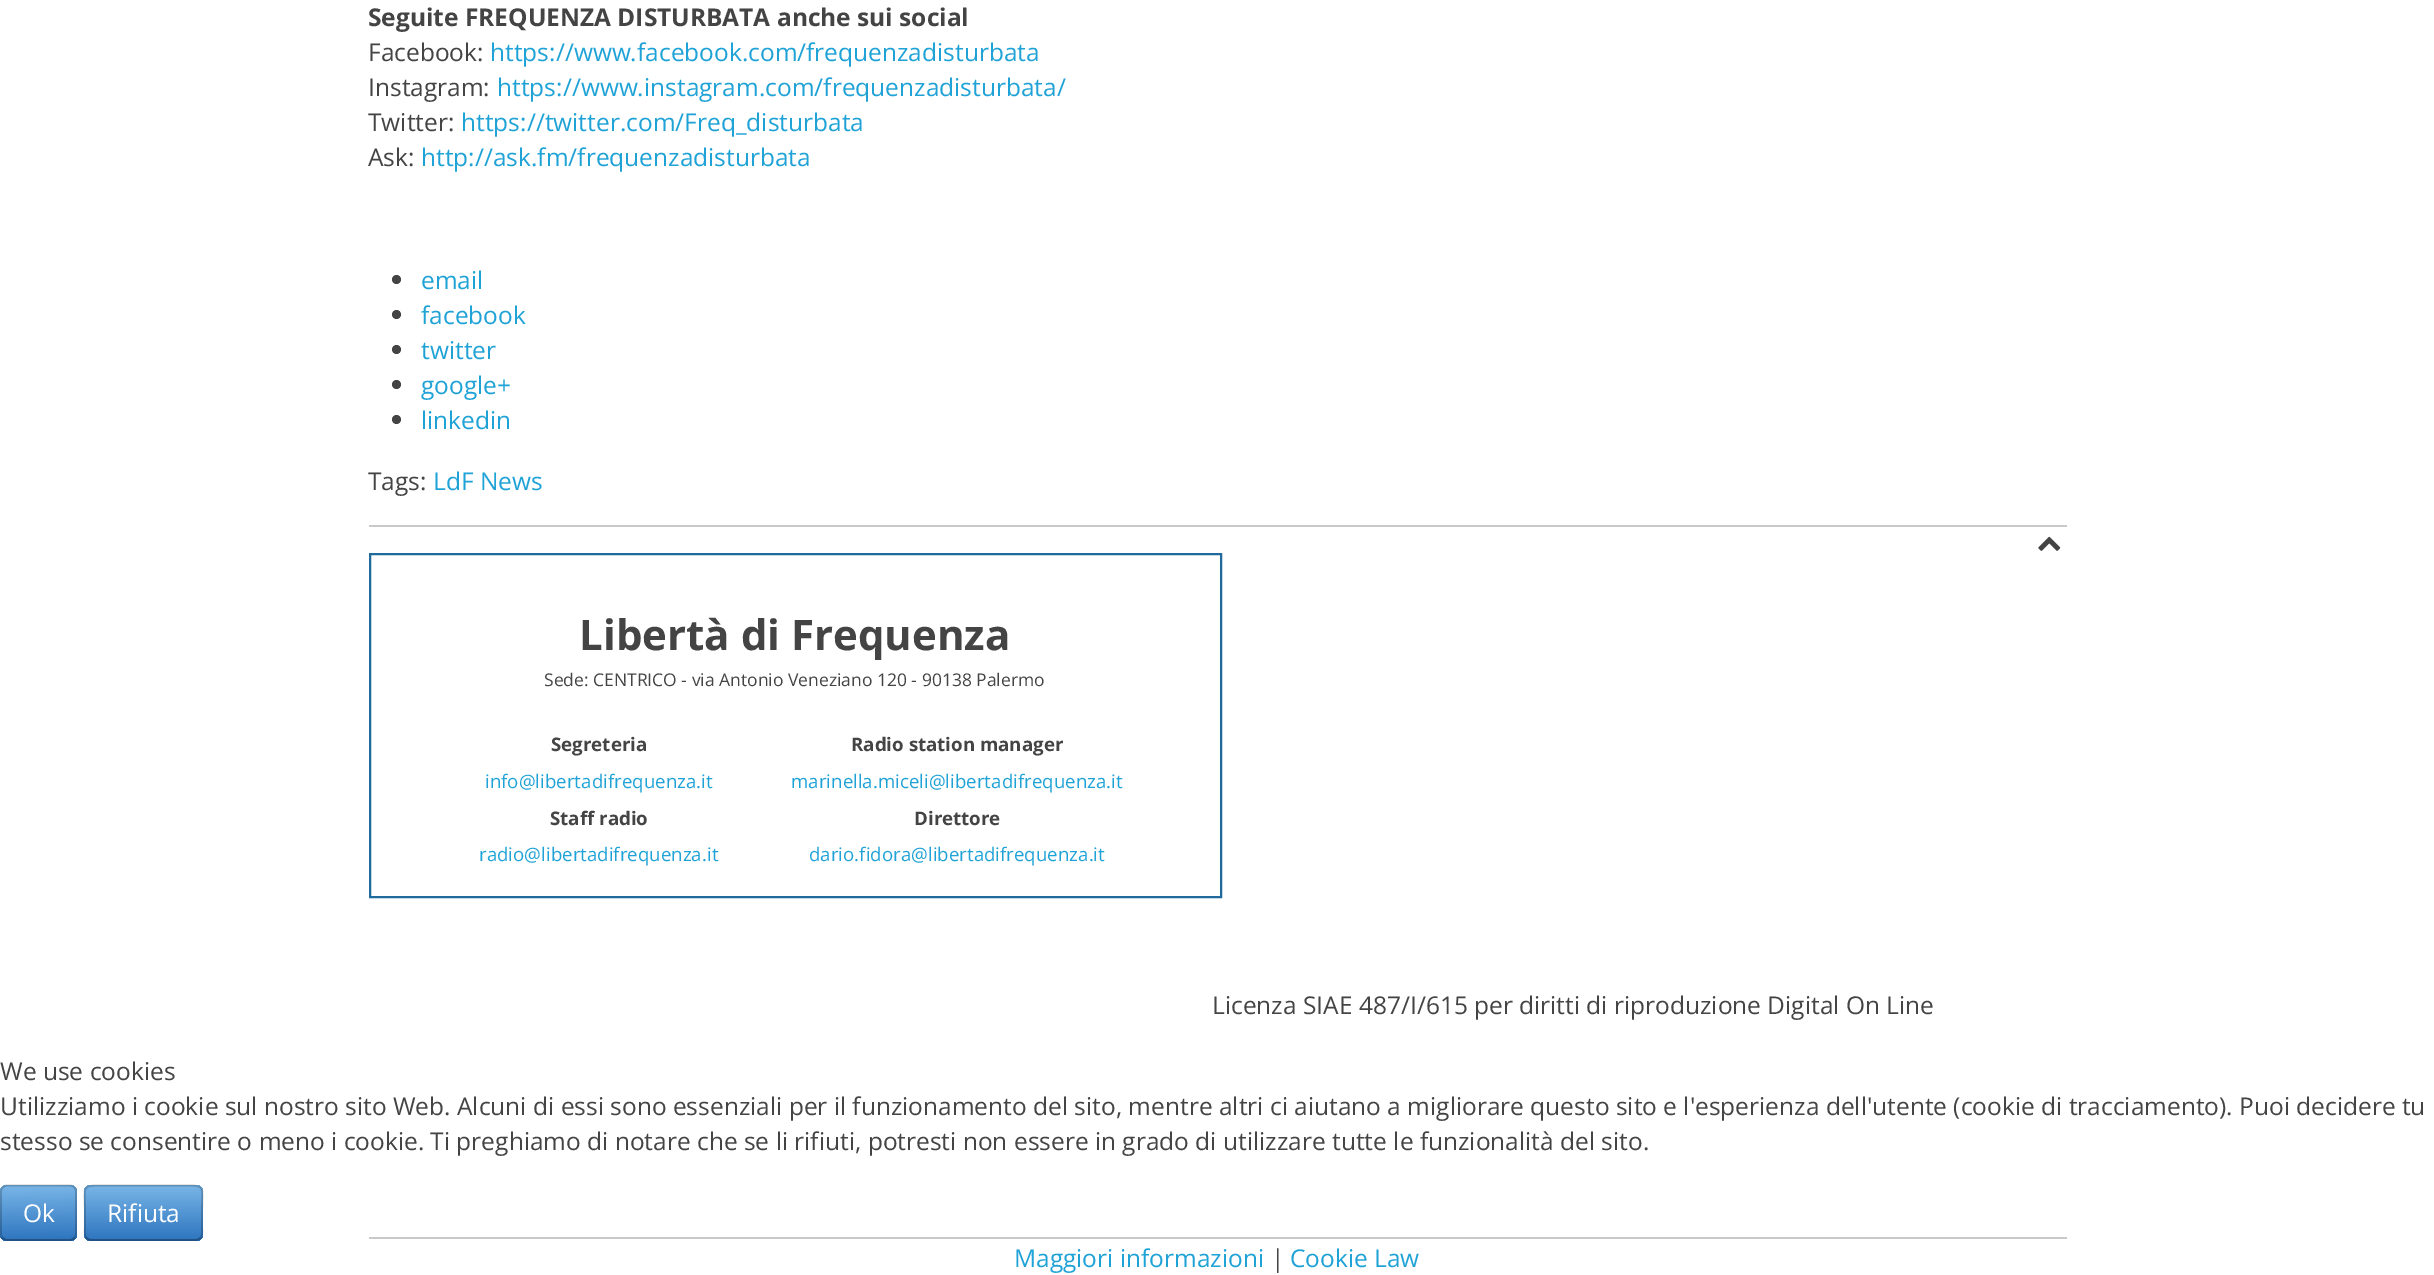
%!PS-Adobe-3.0
%%BoundingBox: 0 0 2434 1275
%%LanguageLevel: 3
%%Pages: 1
%%EndComments
%%BeginProlog
/setalpha { dup .setfillconstantalpha .setstrokeconstantalpha } def
/rrect { 5 dict begin { /r /h /w /y /x } { exch def } forall
  x r add y moveto x w add y 2 copy h add r arct x w add y h add x 1 index r arct
  x y h add x y r arct x y 2 copy exch w add exch r arct closepath end } def
/drawimage { 5 dict begin { /h /w /y /x /name } { exch def } forall
  gsave x y translate w h scale
  w h 8 [w 0 0 h 0 0] name (r) file false 3 colorimage grestore end } def
%%EndProlog
%%BeginSetup
<< /PageSize [2434 1275] /PageUsesTransparency true >> setpagedevice
%%EndSetup
%%Page: 1 1
0 .pushpdf14devicefilter
0 1275 translate 1 -1 scale
4 setmiterlimit
1 setgray
0 0 2434 1275 rectfill
0.267 setgray
newpath 396.5 279.5 4.5 0 360 arc closepath fill
newpath 396.5 314.5 4.5 0 360 arc closepath fill
newpath 396.5 349.5 4.5 0 360 arc closepath fill
newpath 396.5 384.5 4.5 0 360 arc closepath fill
newpath 396.5 419.5 4.5 0 360 arc closepath fill
(images/1.raw) 2038 536 23 15 drawimage
0.788 setgray
369 525 1698 2 rectfill
369 1237 1698 2 rectfill
0.129 0.416 0.616 setrgbcolor
2 setlinewidth
370 554 851 343 rectstroke
gsave 0 1185 77 56 7 rrect clip newpath
<< /ShadingType 2 /ColorSpace /DeviceRGB /Coords [38 1185 39 1241] /Extend [true true] /Function << /FunctionType 2 /Domain [0 1] /C0 [0.475 0.714 0.91] /C1 [0.176 0.455 0.745] /N 1 >> >> shfill grestore
0.3 setalpha
0 setgray
1.8 setlinewidth
newpath 74.5 1238 moveto 73 1239 71.5 1240 70 1240 curveto 7 1240 lineto 5.5 1240 4 1239 2.5 1238 curveto stroke
0.2 setalpha
newpath 2.5 1238 moveto 1.5 1237 1 1235.5 1 1234 curveto 1 1192 lineto 1 1190 1.5 1188.5 2.5 1187.5 curveto 4 1186.5 5.5 1185.5 7 1185.5 curveto 70 1185.5 lineto 71.5 1185.5 73 1186.5 74.5 1187.5 curveto 75.5 1188.5 76 1190 76 1192 curveto 76 1234 lineto 76 1235.5 75.5 1237 74.5 1238 curveto stroke
1 setalpha
gsave 84 1185 119 56 7 rrect clip newpath
<< /ShadingType 2 /ColorSpace /DeviceRGB /Coords [144 1185 144 1241] /Extend [true true] /Function << /FunctionType 2 /Domain [0 1] /C0 [0.475 0.714 0.91] /C1 [0.176 0.455 0.745] /N 1 >> >> shfill grestore
0.3 setalpha
newpath 200.5 1238 moveto 199 1239 197.5 1240 196 1240 curveto 91 1240 lineto 89.5 1240 88 1239 86.5 1238 curveto stroke
0.2 setalpha
newpath 86.5 1238 moveto 84 1235 85 1230 85 1227 curveto 85 1213 lineto 85 1183.5 79.5 1185.5 108.5 1185.5 curveto 178.5 1185.5 lineto 207.5 1185.5 202 1183.5 202 1213 curveto 202 1227 lineto 202 1230 203 1235 200.5 1238 curveto stroke
/OpenSans-Bold [24.5 0 0 -24.5 0 0] selectfont
1 setalpha
0.267 setgray
368 26 moveto (Seguite FREQUENZA DISTURBATA anche sui social) show
/OpenSans-Regular [24.5 0 0 -24.5 0 0] selectfont
368 61 moveto (Facebook:) show
0.122 0.635 0.839 setrgbcolor
490 61 moveto (https://www.facebook.com/frequenzadisturbata) show
0.267 setgray
368 96 moveto (Instagram:) show
0.122 0.635 0.839 setrgbcolor
497 96 moveto (https://www.instagram.com/frequenzadisturbata/) show
0.267 setgray
368 131 moveto (Twitter:) show
0.122 0.635 0.839 setrgbcolor
461 131 moveto (https://twitter.com/Freq_disturbata) show
0.267 setgray
368 166 moveto (Ask:) show
0.122 0.635 0.839 setrgbcolor
421 166 moveto (http://ask.fm/frequenzadisturbata) show
421 289 moveto (email) show
421 324 moveto (facebook) show
421 359 moveto (twitter) show
421 394 moveto (google+) show
421 429 moveto (linkedin) show
0.267 setgray
368 490 moveto (Tags:) show
0.122 0.635 0.839 setrgbcolor
433 490 moveto (LdF News) show
/OpenSans-Bold [42 0 0 -42 0 0] selectfont
0.267 setgray
579 650 moveto (Libertà di Frequenza) show
/OpenSans-Regular [17.5 0 0 -17.5 0 0] selectfont
544 686 moveto (Sede: CENTRICO - via Antonio Veneziano 120 - 90138 Palermo) show
/OpenSans-Bold [18.7 0 0 -18.7 0 0] selectfont
551 751 moveto (Segreteria) show
/OpenSans-Regular [18.7 0 0 -18.7 0 0] selectfont
0.122 0.635 0.839 setrgbcolor
485 788 moveto (info@libertadifrequenza.it) show
/OpenSans-Bold [18.7 0 0 -18.7 0 0] selectfont
0.267 setgray
550 825 moveto (Staff radio) show
/OpenSans-Regular [18.7 0 0 -18.7 0 0] selectfont
0.122 0.635 0.839 setrgbcolor
479 861 moveto (radio@libertadifrequenza.it) show
/OpenSans-Bold [18.7 0 0 -18.7 0 0] selectfont
0.267 setgray
851 751 moveto (Radio station manager) show
/OpenSans-Regular [18.7 0 0 -18.7 0 0] selectfont
0.122 0.635 0.839 setrgbcolor
791 788 moveto (marinella.miceli@libertadifrequenza.it) show
/OpenSans-Bold [18.7 0 0 -18.7 0 0] selectfont
0.267 setgray
914 825 moveto (Direttore) show
/OpenSans-Regular [18.7 0 0 -18.7 0 0] selectfont
0.122 0.635 0.839 setrgbcolor
809 861 moveto (dario.fidora@libertadifrequenza.it) show
/OpenSans-Regular [24.5 0 0 -24.5 0 0] selectfont
0.267 setgray
1212 1014 moveto (Licenza SIAE 487/I/615 per diritti di riproduzione Digital On Line) show
0 1080 moveto (We use cookies) show
0 1115 moveto (Utilizziamo i cookie sul nostro sito Web. Alcuni di essi sono essenziali per il funzionamento del sito, mentre altri ci aiutano a migliorare questo sito e l'esperienza dell'utente \(cookie di tracciamento\). Puoi decidere tu) show
0 1150 moveto (stesso se consentire o meno i cookie. Ti preghiamo di notare che se li rifiuti, potresti non essere in grado di utilizzare tutte le funzionalità del sito.) show
1 setgray
23 1222 moveto (Ok) show
107 1222 moveto (Rifiuta) show
0.122 0.635 0.839 setrgbcolor
1014 1267 moveto (Maggiori informazioni) show
0.267 setgray
1271 1267 moveto (|) show
0.122 0.635 0.839 setrgbcolor
1290 1267 moveto (Cookie Law) show
.poppdf14devicefilter showpage
%%EOF
